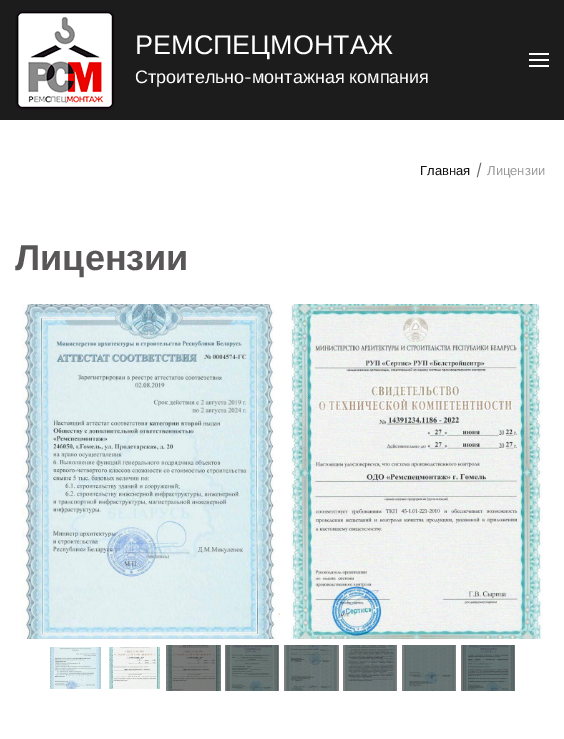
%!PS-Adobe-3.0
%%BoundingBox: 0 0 564 739
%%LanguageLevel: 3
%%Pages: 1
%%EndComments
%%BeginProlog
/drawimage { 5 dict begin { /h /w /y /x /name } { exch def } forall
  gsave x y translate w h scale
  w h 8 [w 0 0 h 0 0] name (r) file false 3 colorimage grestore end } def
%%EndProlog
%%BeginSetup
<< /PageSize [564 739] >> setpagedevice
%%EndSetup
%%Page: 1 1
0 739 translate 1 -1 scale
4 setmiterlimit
1 setgray
0 0 564 739 rectfill
0.502 setgray
284 645 55 46 rectfill
0.11 setgray
0 0 564 120 rectfill
(images/1.raw) 15 10 100 100 drawimage
1 setgray
529 53 20 2 rectfill
529 59 20 2 rectfill
529 65 20 2 rectfill
(images/2.raw) 21 304 259 335 drawimage
(images/3.raw) 290 304 253 335 drawimage
(images/4.raw) 50 647 51 42 drawimage
(images/5.raw) 109 647 51 42 drawimage
(images/6.raw) 166 645 55 46 drawimage
(images/7.raw) 225 645 54 46 drawimage
(images/8.raw) 285 645 53 46 drawimage
(images/9.raw) 343 645 54 46 drawimage
(images/10.raw) 402 645 54 46 drawimage
(images/11.raw) 461 645 54 46 drawimage
/LiberationSans-Regular [27 0 0 -27 0 0] selectfont
135 54 moveto (РЕМСПЕЦМОНТАЖ) show
/LiberationSans-Regular [18 0 0 -18 0 0] selectfont
135 83 moveto (Строительно) show
/Muli-Regular [18 0 0 -18 0 0] selectfont
244 83 moveto (-) show
/LiberationSans-Regular [18 0 0 -18 0 0] selectfont
252 83 moveto (монтажная компания) show
/LiberationSans-Regular [13 0 0 -13 0 0] selectfont
0.071 setgray
420 175 moveto (Главная) show
/Poppins-Regular [13 0 0 -13 0 0] selectfont
0.4 setgray
476 175 moveto (/) show
/LiberationSans-Regular [13 0 0 -13 0 0] selectfont
0.6 setgray
487 175 moveto (Лицензии) show
/LiberationSans-Bold [36 0 0 -36 0 0] selectfont
0.345 0.337 0.337 setrgbcolor
15 270 moveto (Лицензии) show
showpage
%%EOF
